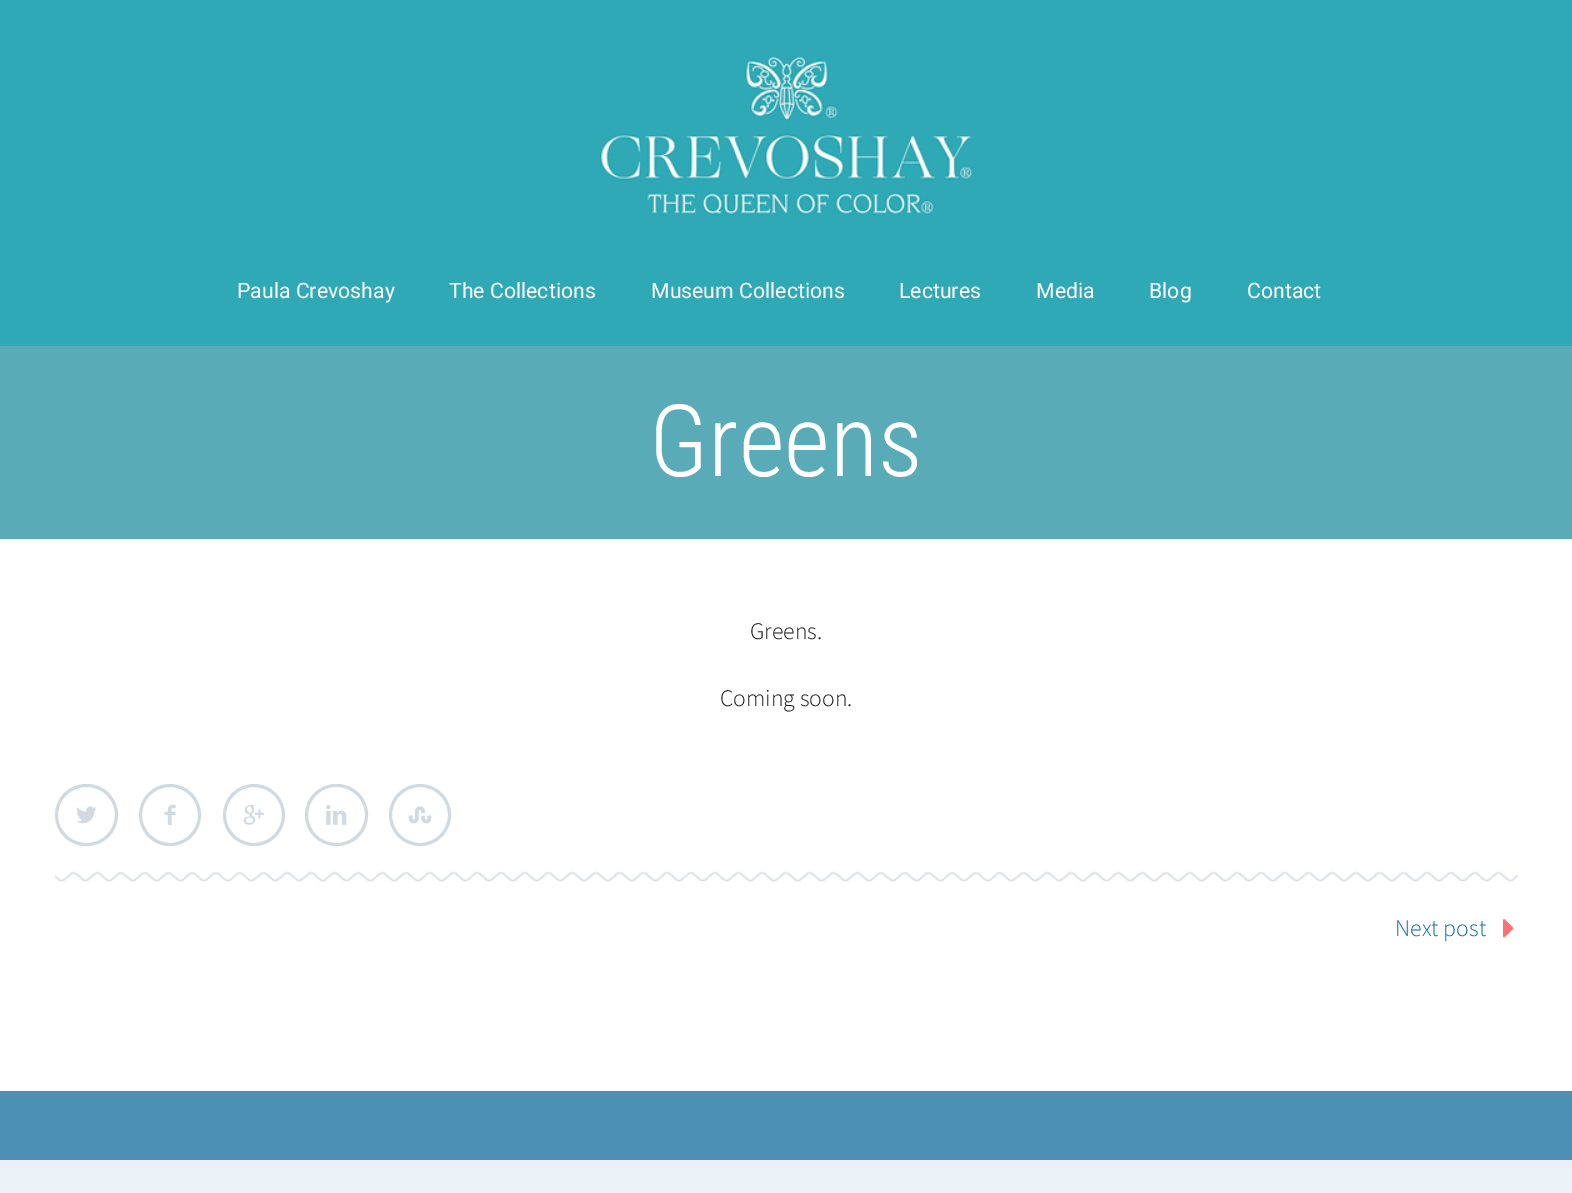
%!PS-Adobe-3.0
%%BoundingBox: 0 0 1572 1193
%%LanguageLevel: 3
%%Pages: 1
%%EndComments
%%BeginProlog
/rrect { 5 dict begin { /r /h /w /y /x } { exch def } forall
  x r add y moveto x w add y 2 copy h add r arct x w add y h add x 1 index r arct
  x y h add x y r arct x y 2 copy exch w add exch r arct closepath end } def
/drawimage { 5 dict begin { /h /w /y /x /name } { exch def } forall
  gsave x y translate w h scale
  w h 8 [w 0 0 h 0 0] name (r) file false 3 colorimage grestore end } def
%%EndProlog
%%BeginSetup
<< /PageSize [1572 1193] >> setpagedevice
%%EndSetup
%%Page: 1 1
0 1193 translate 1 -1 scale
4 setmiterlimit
1 setgray
0 0 1572 1193 rectfill
0.184 0.663 0.714 setrgbcolor
0 0 1572 346 rectfill
(images/1.raw) 600 56 374 159 drawimage
0.345 0.671 0.718 setrgbcolor
0 346 1572 193 rectfill
0.824 0.855 0.882 setrgbcolor
3 setlinewidth
56.5 785.5 60 59 29.5 rrect stroke
(images/2.raw) 76 806 21 18 drawimage
newpath 170 815 29.5 0 360 arc closepath stroke
(images/3.raw) 164 804 12 21 drawimage
newpath 254 815 29.5 0 360 arc closepath stroke
(images/4.raw) 243 805 21 20 drawimage
306.5 785.5 60 59 29.5 rrect stroke
(images/5.raw) 326 805 21 20 drawimage
newpath 420 815 29.5 0 360 arc closepath stroke
(images/6.raw) 408 806 24 18 drawimage
(images/7.raw) 55 871 1463 11 drawimage
(images/8.raw) 1502 919 12 19 drawimage
0.298 0.565 0.71 setrgbcolor
0 1091 1572 69 rectfill
0.918 0.949 0.969 setrgbcolor
0 1160 1572 33 rectfill
/Roboto-Regular [21.25 0 0 -21.25 0 0] selectfont
1 setgray
237 298 moveto (Paula Crevoshay) show
449 298 moveto (The Collections) show
651 298 moveto (Museum Collections) show
899 298 moveto (Lectures) show
1036 298 moveto (Media) show
1149 298 moveto (Blog) show
1247 298 moveto (Contact) show
/RobotoCondensed-Light [100 0 0 -100 0 0] selectfont
649 476 moveto (Greens) show
/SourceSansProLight-Light [23.75 0 0 -23.75 0 0] selectfont
0.11 setgray
750 639 moveto (Greens.) show
720 706 moveto (Coming soon.) show
0.051 0.424 0.639 setrgbcolor
1395 936 moveto (Next post) show
showpage
%%EOF
